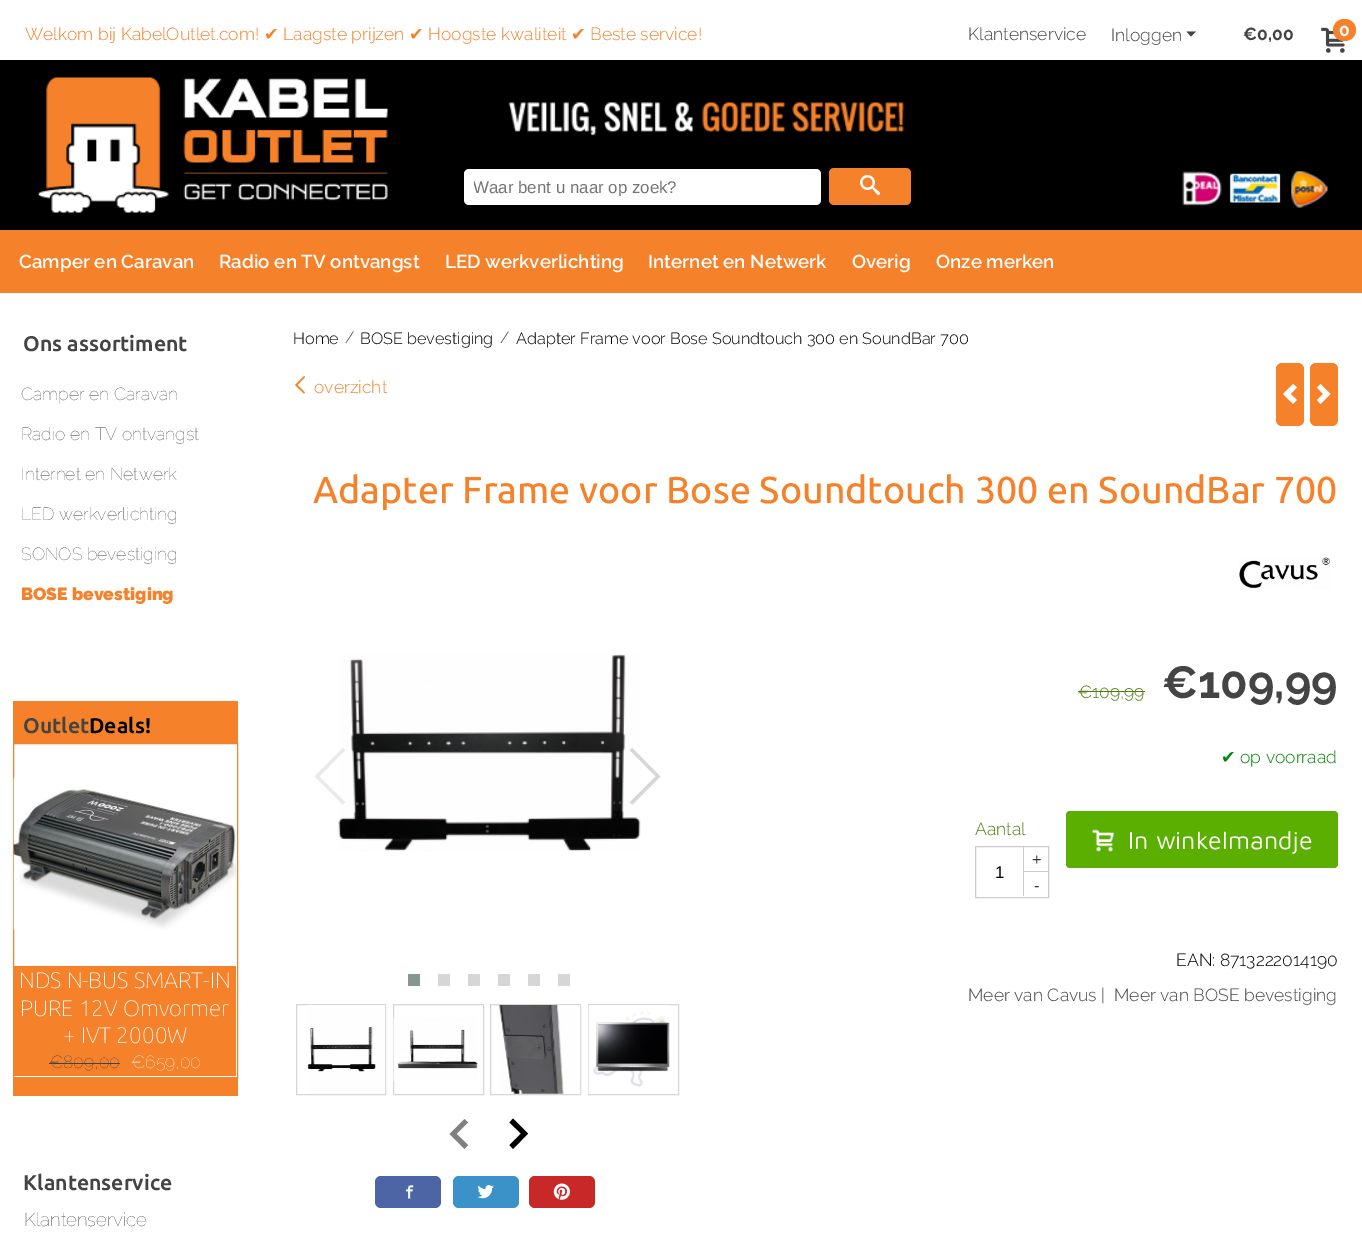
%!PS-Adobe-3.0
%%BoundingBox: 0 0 1362 1253
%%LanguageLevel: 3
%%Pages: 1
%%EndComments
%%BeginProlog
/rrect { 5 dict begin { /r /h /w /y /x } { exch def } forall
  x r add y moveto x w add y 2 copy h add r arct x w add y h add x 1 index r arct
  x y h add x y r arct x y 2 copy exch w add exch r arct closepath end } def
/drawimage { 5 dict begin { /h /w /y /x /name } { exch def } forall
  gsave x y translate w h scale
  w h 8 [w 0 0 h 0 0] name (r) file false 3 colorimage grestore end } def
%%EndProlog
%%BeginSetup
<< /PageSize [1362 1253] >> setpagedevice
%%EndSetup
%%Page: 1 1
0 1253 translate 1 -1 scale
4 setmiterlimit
1 setgray
0 0 1362 1253 rectfill
0.271 0.267 0.267 setrgbcolor
newpath 1186.5 31.5 moveto 1191 36.5 lineto 1196 31.5 lineto closepath fill
(images/1.raw) 1321 27 24 26 drawimage
0.961 0.51 0.165 setrgbcolor
1333 19 23 22 11 rrect fill
0 setgray
0 60 1362 170 rectfill
(images/2.raw) 38 77 350 136 drawimage
(images/3.raw) 508 102 396 34 drawimage
(images/4.raw) 1182 171 146 37 drawimage
0.961 0.51 0.165 setrgbcolor
0 230 1362 63 rectfill
1 setgray
464 169 357 36 5 rrect fill
0.961 0.51 0.165 setrgbcolor
829 168 82 37 5 rrect fill
(images/5.raw) 860 175 20 20 drawimage
13 701 225 42 rectfill
13 1078 225 18 rectfill
13.5 743.5 224 334 rectstroke
(images/6.raw) 13 778 223 152 drawimage
14 966 222 110 rectfill
0.271 0.267 0.267 setrgbcolor
49 1063 71 1 rectfill
0.961 0.51 0.165 setrgbcolor
newpath 304 393.5 moveto 305 392.5 lineto 297.5 385 lineto 305 377 lineto 304 376 lineto 295 385 lineto closepath fill
1276 363 28 63 6 rrect fill
1 setgray
newpath 1293 404 moveto 1297 400 lineto 1290.5 394 lineto 1297 387.5 lineto 1293 384 lineto 1283 394 lineto closepath fill
0.961 0.51 0.165 setrgbcolor
1310 363 28 63 6 rrect fill
1 setgray
newpath 1320.5 384 moveto 1317 387.5 lineto 1323 394 lineto 1317 400 lineto 1320.5 404 lineto 1330.5 394 lineto closepath fill
(images/7.raw) 338 654 303 198 drawimage
0.918 setgray
3.2 setlinewidth
newpath 344 749 moveto 317 776.5 lineto 344 803.5 lineto stroke
0.839 setgray
newpath 631 803.5 moveto 658 776.5 lineto 631 749 lineto stroke
0.525 0.592 0.569 setrgbcolor
408 974 12 12 rectfill
0.839 setgray
438 974 12 12 rectfill
468 974 12 12 rectfill
498 974 12 12 rectfill
528 974 12 12 rectfill
558 974 12 12 rectfill
1 setlinewidth
296.5 1004.5 89 90 rectstroke
(images/8.raw) 307 1005 79 89 drawimage
393.5 1004.5 90 90 rectstroke
(images/9.raw) 393 1017 85 64 drawimage
490.5 1004.5 90 90 rectstroke
(images/10.raw) 499 1005 82 89 drawimage
588.5 1004.5 90 90 rectstroke
(images/11.raw) 588 1005 82 89 drawimage
0.502 setgray
newpath 464.5 1119 moveto 468 1122.5 lineto 456.5 1134 lineto 468 1145 lineto 464.5 1149 lineto 449.5 1134 lineto closepath fill
0 setgray
newpath 513 1149 moveto 509.5 1145 lineto 521 1133.5 lineto 509.5 1122.5 lineto 513 1118.5 lineto 528 1133.5 lineto closepath fill
0.298 0.396 0.647 setrgbcolor
375 1176 66 32 6 rrect fill
(images/12.raw) 406 1185 8 14 drawimage
0.231 0.573 0.784 setrgbcolor
453 1176 66 32 6 rrect fill
(images/13.raw) 477 1185 17 14 drawimage
0.784 0.157 0.157 setrgbcolor
529 1176 66 32 6 rrect fill
(images/14.raw) 553 1183 17 17 drawimage
(images/15.raw) 1239 557 91 32 drawimage
0.306 0.49 0.055 setrgbcolor
1078 691 15 1 rectfill
1093 691 52 1 rectfill
0.8 setgray
975.5 846.5 73 51 rectstroke
1023 871 26 1 rectfill
1023 846 1 50 rectfill
0.357 0.686 0.004 setrgbcolor
1066 811 272 57 4 rrect fill
(images/16.raw) 1092 829 23 23 drawimage
/Raleway-Light [17.5 0 0 -17.5 0 0] selectfont
0.961 0.51 0.165 setrgbcolor
25 40 moveto (Welkom bij KabelOutlet.com!) show
/DejaVuSans-Regular [17.5 0 0 -17.5 0 0] selectfont
264 40 moveto (✔) show
/Raleway-Light [17.5 0 0 -17.5 0 0] selectfont
283 40 moveto (Laagste prijzen) show
/DejaVuSans-Regular [17.5 0 0 -17.5 0 0] selectfont
409 40 moveto (✔) show
/Raleway-Light [17.5 0 0 -17.5 0 0] selectfont
428 40 moveto (Hoogste kwaliteit) show
/DejaVuSans-Regular [17.5 0 0 -17.5 0 0] selectfont
571 40 moveto (✔) show
/Raleway-Light [17.5 0 0 -17.5 0 0] selectfont
590 40 moveto (Beste service!) show
0.271 0.267 0.267 setrgbcolor
968 40 moveto (Klantenservice) show
1111 41 moveto (Inloggen) show
/Raleway-Bold [17.5 0 0 -17.5 0 0] selectfont
1243 40 moveto (€0,00) show
1 setgray
1339 36 moveto (0) show
gsave
474 178 337 18 rectclip
/LiberationSans-Regular [16.9 0 0 -16.9 0 0] selectfont
0.459 setgray
473 193 moveto (Waar bent u naar op zoek?) show
grestore
/Raleway-SemiBold [18.75 0 0 -18.75 0 0] selectfont
19 268 moveto (Camper en Caravan) show
219 268 moveto (Radio en TV ontvangst) show
445 268 moveto (LED werkverlichting) show
648 268 moveto (Internet en Netwerk) show
852 268 moveto (Overig) show
936 268 moveto (Onze merken) show
/Ubuntu-Bold [21.25 0 0 -21.25 0 0] selectfont
0.271 0.267 0.267 setrgbcolor
23 351 moveto (Ons assortiment) show
/Raleway-Thin [17.5 0 0 -17.5 0 0] selectfont
21 400 moveto (Camper en Caravan) show
21 440 moveto (Radio en TV ontvangst) show
21 480 moveto (Internet en Netwerk) show
21 520 moveto (LED werkverlichting) show
21 560 moveto (SONOS bevestiging) show
/Raleway-Black [17.5 0 0 -17.5 0 0] selectfont
0.961 0.51 0.165 setrgbcolor
21 600 moveto (BOSE bevestiging) show
/Ubuntu-Bold [21.25 0 0 -21.25 0 0] selectfont
0.271 0.267 0.267 setrgbcolor
23 733 moveto (Outlet) show
0 setgray
89 733 moveto (Deals!) show
/Ubuntu-Thin [22.5 0 0 -22.5 0 0] selectfont
1 setgray
19 988 moveto (NDS N-BUS SMART-IN) show
20 1016 moveto (PURE 12V Omvormer) show
63 1043 moveto (+ IVT 2000W) show
/Raleway-Thin [17.5 0 0 -17.5 0 0] selectfont
0.271 0.267 0.267 setrgbcolor
49 1068 moveto (€809,00) show
1 setgray
131 1068 moveto (€659,00) show
/Ubuntu-Bold [21.25 0 0 -21.25 0 0] selectfont
0.271 0.267 0.267 setrgbcolor
23 1190 moveto (Klantenservice) show
/Raleway-Thin [18.75 0 0 -18.75 0 0] selectfont
24 1226 moveto (Klantenservice) show
/Raleway-Light [16.25 0 0 -16.25 0 0] selectfont
0 setgray
293 344 moveto (Home) show
0.271 0.267 0.267 setrgbcolor
345 343 moveto (/) show
0 setgray
360 344 moveto (BOSE bevestiging) show
0.271 0.267 0.267 setrgbcolor
500 343 moveto (/) show
0 setgray
516 344 moveto (Adapter Frame voor Bose Soundtouch 300 en SoundBar 700) show
/Raleway-Light [17.5 0 0 -17.5 0 0] selectfont
0.961 0.51 0.165 setrgbcolor
314 393 moveto (overzicht) show
/Ubuntu-Medium [37.5 0 0 -37.5 0 0] selectfont
313 503 moveto (Adapter Frame voor Bose Soundtouch 300 en SoundBar 700) show
/Raleway-Light [17.5 0 0 -17.5 0 0] selectfont
0.306 0.49 0.055 setrgbcolor
1078 698 moveto (€) show
1092 698 moveto (109,99) show
/Raleway-Bold [45 0 0 -45 0 0] selectfont
0.271 0.267 0.267 setrgbcolor
1162 698 moveto (€109,99) show
/DejaVuSans-Regular [17.5 0 0 -17.5 0 0] selectfont
0 0.525 0 setrgbcolor
1221 763 moveto (✔) show
/Raleway-Light [17.5 0 0 -17.5 0 0] selectfont
1240 763 moveto (op voorraad) show
0.306 0.49 0.055 setrgbcolor
975 835 moveto (Aantal) show
/LiberationSans-Regular [17 0 0 -17 0 0] selectfont
0 setgray
995 878 moveto (1) show
/LiberationSans-Regular [16.25 0 0 -16.25 0 0] selectfont
0.2 setgray
1032 865 moveto (+) show
1034 891 moveto (-) show
/MavenPro-Regular [25 0 0 -25 0 0] selectfont
1 setgray
1128 849 moveto (In winkelmandje) show
/Raleway-Light [17.5 0 0 -17.5 0 0] selectfont
0 setgray
1176 966 moveto (EAN: 8713222014190) show
0.271 0.267 0.267 setrgbcolor
968 1001 moveto (Meer van Cavus |) show
1114 1001 moveto (Meer van BOSE bevestiging) show
showpage
%%EOF
